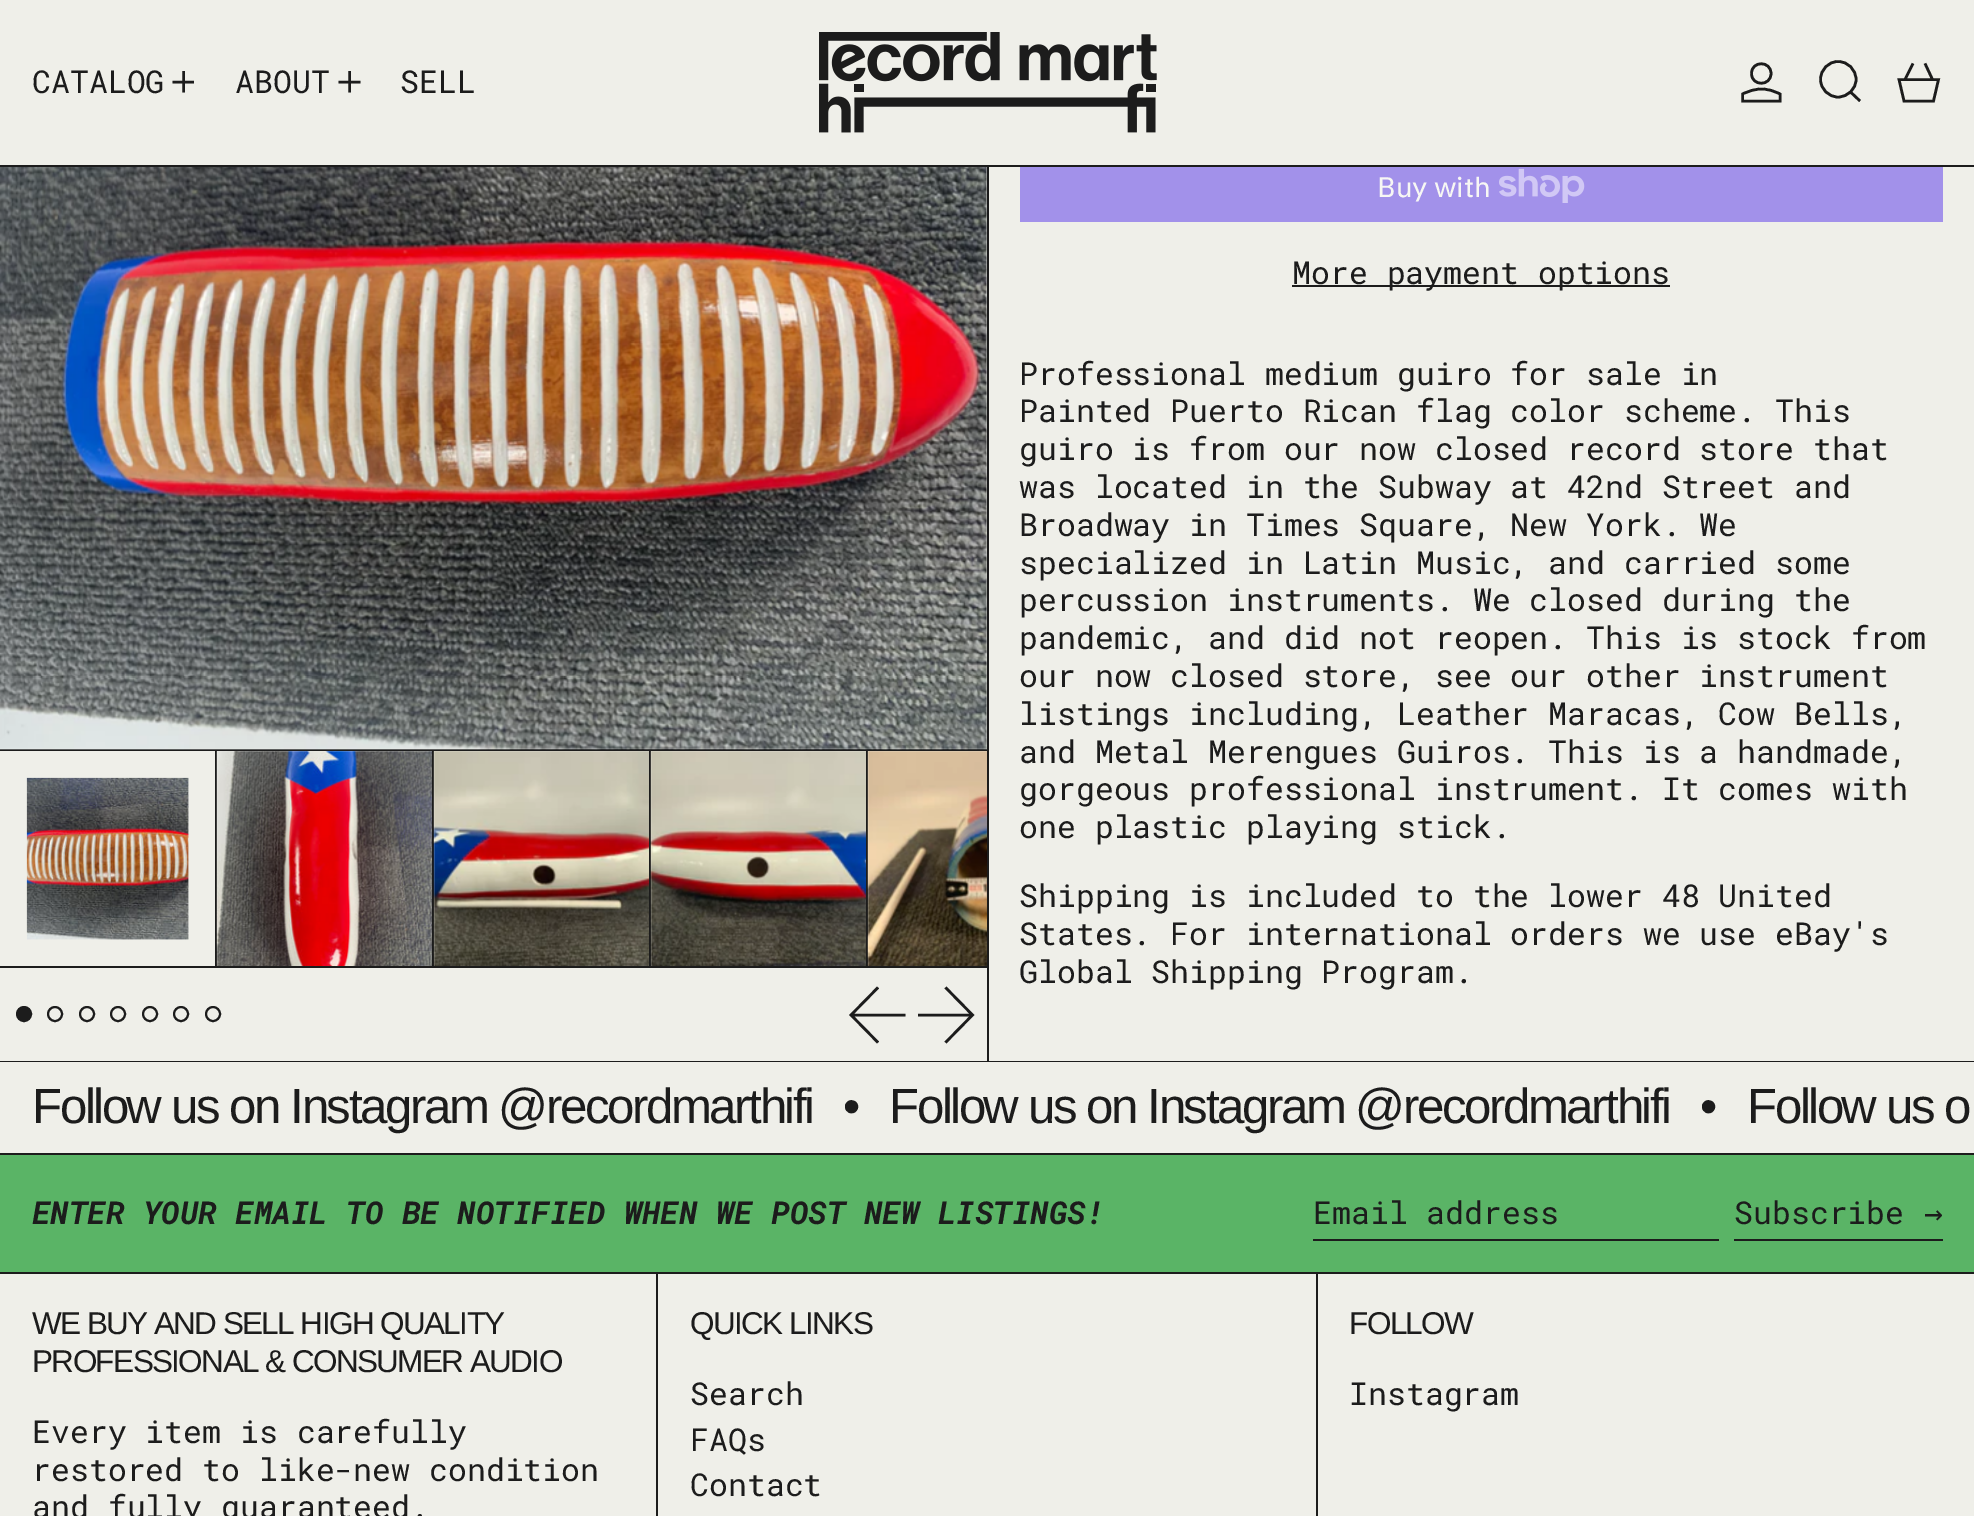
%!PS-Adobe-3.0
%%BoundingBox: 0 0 1974 1516
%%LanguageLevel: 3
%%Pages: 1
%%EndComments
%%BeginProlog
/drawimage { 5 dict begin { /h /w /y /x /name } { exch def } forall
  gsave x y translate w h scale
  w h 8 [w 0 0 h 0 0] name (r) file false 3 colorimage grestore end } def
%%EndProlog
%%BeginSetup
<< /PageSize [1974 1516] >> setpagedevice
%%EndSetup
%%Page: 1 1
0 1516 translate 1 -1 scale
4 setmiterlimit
0.11 setgray
0 0 1974 1516 rectfill
0.937 0.937 0.914 setrgbcolor
0 0 1974 165 rectfill
0.11 setgray
2.6 setlinewidth
newpath 183.5 71 moveto 183.5 92.5 lineto 172.5 82 moveto 194 82 lineto stroke
newpath 349.5 71 moveto 349.5 92.5 lineto 338.5 82 moveto 360.5 82 lineto stroke
(images/1.raw) 819 32 338 101 drawimage
newpath 1761.5 89 moveto 1755 89 1748.5 91 1742.5 94 curveto 1742.5 101 lineto 1780 101 lineto 1780 94 lineto 1774.5 91 1768 89 1761.5 89 curveto closepath 1751.5 73.5 moveto 1751.5 86.5 1771 86.5 1771 73.5 curveto 1771 60.5 1751.5 60.5 1751.5 73.5 curveto closepath stroke
newpath 1820.5 79.5 moveto 1820.5 89 1828.5 97 1838 97 curveto 1848 97 1856 89 1856 79.5 curveto 1856 69.5 1848 61.5 1838 61.5 curveto 1828.5 61.5 1820.5 69.5 1820.5 79.5 curveto closepath 1850.5 92 moveto 1860 101 lineto stroke
newpath 1904 101 moveto 1899 79.5 lineto 1938.5 79.5 lineto 1933.5 101 lineto closepath 1905 79.5 moveto 1913 63.5 lineto 1932.5 79.5 moveto 1925 63.5 lineto stroke
0.937 0.937 0.914 setrgbcolor
0 167 987 894 rectfill
0.11 setgray
0 749 987 2 rectfill
(images/2.raw) 0 167 987 583 drawimage
(images/3.raw) 986 167 1 583 drawimage
0 966 987 2 rectfill
215 751 653 215 rectfill
(images/4.raw) 26 777 163 163 drawimage
0.937 0.937 0.914 setrgbcolor
217 751 215 215 rectfill
(images/5.raw) 216 751 216 215 drawimage
434 751 215 215 rectfill
(images/6.raw) 433 751 216 215 drawimage
651 751 215 215 rectfill
(images/7.raw) 650 751 216 215 drawimage
(images/8.raw) 867 751 120 215 drawimage
0.11 setgray
newpath 24 1014 7 0 360 arc closepath gsave fill grestore
2 setlinewidth
stroke
newpath 55 1014 7 0 360 arc closepath stroke
newpath 87 1014 7 0 360 arc closepath stroke
newpath 118 1014 7 0 360 arc closepath stroke
newpath 150 1014 7 0 360 arc closepath stroke
newpath 181 1014 7 0 360 arc closepath stroke
newpath 213 1014 7 0 360 arc closepath stroke
2.6 setlinewidth
newpath 905.5 1015 moveto 851 1015 lineto 878 1042.5 moveto 851 1015 lineto 878 987.5 lineto stroke
newpath 918 1015 moveto 972.5 1015 lineto 945.5 1042.5 moveto 972.5 1015 lineto 945.5 987.5 lineto stroke
0.937 0.937 0.914 setrgbcolor
989 167 985 894 rectfill
0.635 0.569 0.918 setrgbcolor
1020 167 923 55 rectfill
(images/9.raw) 1499 168 86 35 drawimage
0.11 setgray
1292 285 378 2 rectfill
0.937 0.937 0.914 setrgbcolor
0 1062 1974 91 rectfill
0.353 0.706 0.4 setrgbcolor
0 1155 1974 117 rectfill
0.11 setgray
1313 1239 406 2 rectfill
1734 1239 209 2 rectfill
0.937 0.937 0.914 setrgbcolor
0 1274 656 242 rectfill
658 1274 658 242 rectfill
1318 1274 656 242 rectfill
/RobotoMono-Regular [31.5 0 0 -31.5 0 0] selectfont
0.11 setgray
32 93 moveto (CATALOG) show
235 93 moveto (ABOUT) show
400 93 moveto (SELL) show
/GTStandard-Regular [28 0 0 -28 0 0] selectfont
0.969 0.969 0.957 setrgbcolor
1377 197 moveto (Buy with) show
/RobotoMono-Regular [31.5 0 0 -31.5 0 0] selectfont
0.11 setgray
1292 284 moveto (More payment options) show
1019 385 moveto (Professional medium guiro for sale in) show
1019 422 moveto (Painted Puerto Rican flag color scheme. This) show
1019 460 moveto (guiro is from our now closed record store that) show
1019 498 moveto (was located in the Subway at 42nd Street and) show
1019 536 moveto (Broadway in Times Square, New York. We) show
1019 574 moveto (specialized in Latin Music, and carried some) show
1019 611 moveto (percussion instruments. We closed during the) show
1019 649 moveto (pandemic, and did not reopen. This is stock from) show
1019 687 moveto (our now closed store, see our other instrument) show
1019 725 moveto (listings including, Leather Maracas, Cow Bells,) show
1019 763 moveto (and Metal Merengues Guiros. This is a handmade,) show
1019 800 moveto (gorgeous professional instrument. It comes with) show
1019 838 moveto (one plastic playing stick.) show
1019 907 moveto (Shipping is included to the lower 48 United) show
1019 945 moveto (States. For international orders we use eBay's) show
1019 983 moveto (Global Shipping Program.) show
/LiberationSans-Regular [49.25 0 0 -49.25 0 0] selectfont
32 1123 moveto -2.45 0 (Follow us on Instagram @recordmarthifi) ashow
843 1123 moveto -2.45 0 (•) ashow
889 1123 moveto -2.45 0 (Follow us on Instagram @recordmarthifi) ashow
1700 1123 moveto -2.45 0 (•) ashow
1747 1123 moveto -2.45 0 (Follow us o) ashow
/RobotoMono-BoldItalic [31.5 0 0 -31.5 0 0] selectfont
32 1224 moveto (ENTER YOUR EMAIL TO BE NOTIFIED WHEN WE POST NEW LISTINGS!) show
/RobotoMono-Regular [31.5 0 0 -31.5 0 0] selectfont
1313 1224 moveto (Email address) show
1734 1224 moveto (Subscribe) show
/DejaVuSansMono-Regular [31.5 0 0 -31.5 0 0] selectfont
1924 1224 moveto (→) show
/LiberationSans-Regular [31.5 0 0 -31.5 0 0] selectfont
32 1334 moveto -1.6 0 (WE BUY AND SELL HIGH QUALITY) ashow
32 1372 moveto -1.6 0 (PROFESSIONAL & CONSUMER AUDIO) ashow
/RobotoMono-Regular [31.5 0 0 -31.5 0 0] selectfont
32 1443 moveto (Every item is carefully) show
32 1481 moveto (restored to like-new condition) show
32 1518 moveto (and fully guaranteed.) show
/LiberationSans-Regular [31.5 0 0 -31.5 0 0] selectfont
690 1334 moveto -1.6 0 (QUICK LINKS) ashow
/RobotoMono-Regular [31.5 0 0 -31.5 0 0] selectfont
690 1405 moveto (Search) show
690 1451 moveto (FAQs) show
690 1496 moveto (Contact) show
/LiberationSans-Regular [31.5 0 0 -31.5 0 0] selectfont
1349 1334 moveto -1.6 0 (FOLLOW) ashow
/RobotoMono-Regular [31.5 0 0 -31.5 0 0] selectfont
1349 1405 moveto (Instagram) show
showpage
%%EOF
